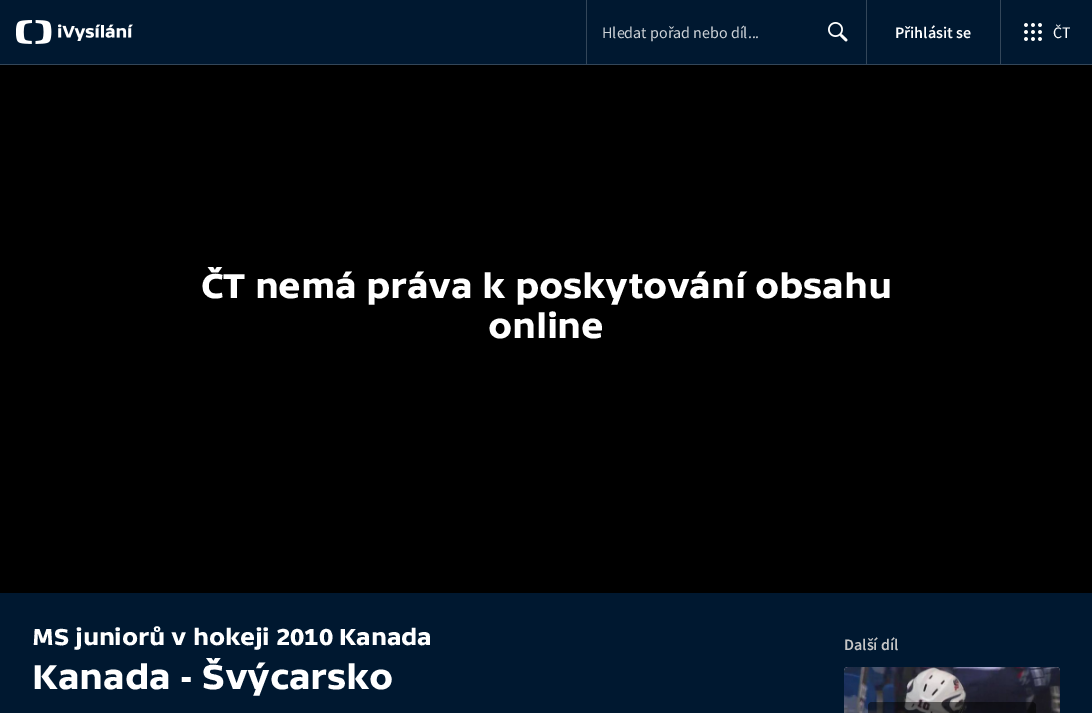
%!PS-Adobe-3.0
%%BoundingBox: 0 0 1092 713
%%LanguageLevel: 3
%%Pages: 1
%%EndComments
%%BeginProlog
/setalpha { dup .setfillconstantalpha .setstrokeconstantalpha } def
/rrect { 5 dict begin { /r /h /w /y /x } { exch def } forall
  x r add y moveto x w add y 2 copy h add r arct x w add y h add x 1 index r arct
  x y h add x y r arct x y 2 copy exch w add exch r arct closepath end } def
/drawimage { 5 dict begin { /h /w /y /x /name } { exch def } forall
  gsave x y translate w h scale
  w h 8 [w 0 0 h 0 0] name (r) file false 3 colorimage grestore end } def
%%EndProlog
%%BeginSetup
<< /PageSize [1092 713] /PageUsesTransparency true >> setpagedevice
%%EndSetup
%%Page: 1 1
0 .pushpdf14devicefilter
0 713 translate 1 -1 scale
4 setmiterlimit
0 0.094 0.188 setrgbcolor
0 0 1092 713 rectfill
0.2 0.275 0.349 setrgbcolor
0 64 1092 1 rectfill
(images/1.raw) 16 20 117 24 drawimage
586 0 1 64 rectfill
(images/2.raw) 828 22 20 20 drawimage
866 0 1 64 rectfill
1000 0 1 64 rectfill
(images/3.raw) 1024 23 18 18 drawimage
0 setgray
0 65 1092 528 rectfill
(images/4.raw) 844 667 216 46 drawimage
0.5 setalpha
868 702 168 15 4 rrect fill
/SourceSansPro-Regular [16 0 0 -16 0 0] selectfont
1 setalpha
0.8 0.82 0.839 setrgbcolor
602 38 moveto (Hledat pořad nebo díl...) show
/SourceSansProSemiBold-SemiBold [16 0 0 -16 0 0] selectfont
1 setgray
895 38 moveto (Přihlásit se) show
/SourceSansPro-Regular [16 0 0 -16 0 0] selectfont
1053 38 moveto (ČT) show
/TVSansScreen-Bold [36 0 0 -36 0 0] selectfont
201 298 moveto -0.4 0 (ČT nemá práva k poskytování obsahu) ashow
488 338 moveto -0.4 0 (online) ashow
/TVSansScreen-Bold [24 0 0 -24 0 0] selectfont
32 645 moveto -0.25 0 (MS juniorů v hokeji 2010 Kanada) ashow
/TVSansScreen-Bold [36 0 0 -36 0 0] selectfont
32 689 moveto -0.4 0 (Kanada - Švýcarsko) ashow
/SourceSansProSemiBold-SemiBold [16 0 0 -16 0 0] selectfont
0.776 setgray
844 650 moveto (Další díl) show
.poppdf14devicefilter showpage
%%EOF
